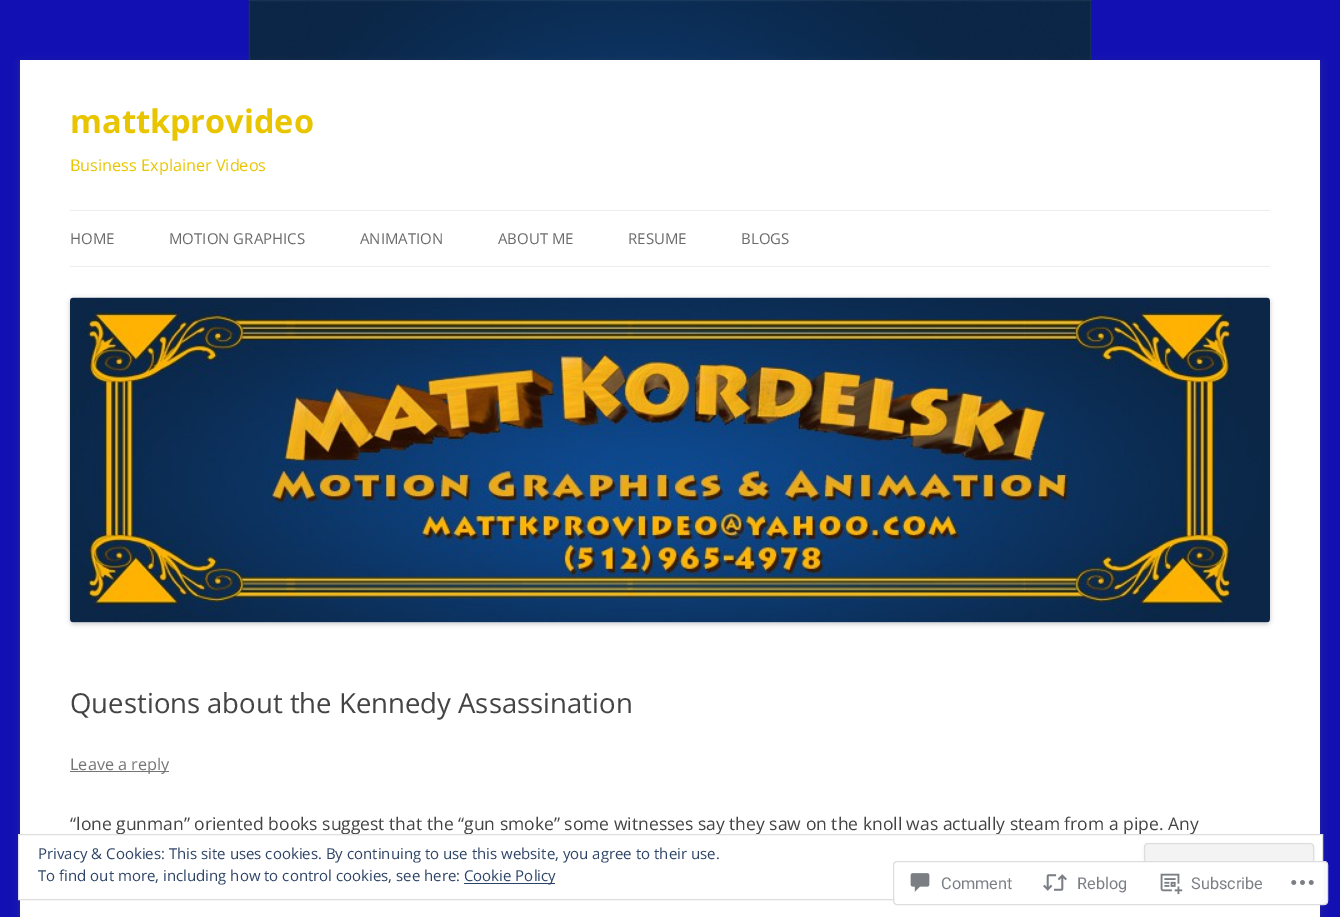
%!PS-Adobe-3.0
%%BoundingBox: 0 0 1340 917
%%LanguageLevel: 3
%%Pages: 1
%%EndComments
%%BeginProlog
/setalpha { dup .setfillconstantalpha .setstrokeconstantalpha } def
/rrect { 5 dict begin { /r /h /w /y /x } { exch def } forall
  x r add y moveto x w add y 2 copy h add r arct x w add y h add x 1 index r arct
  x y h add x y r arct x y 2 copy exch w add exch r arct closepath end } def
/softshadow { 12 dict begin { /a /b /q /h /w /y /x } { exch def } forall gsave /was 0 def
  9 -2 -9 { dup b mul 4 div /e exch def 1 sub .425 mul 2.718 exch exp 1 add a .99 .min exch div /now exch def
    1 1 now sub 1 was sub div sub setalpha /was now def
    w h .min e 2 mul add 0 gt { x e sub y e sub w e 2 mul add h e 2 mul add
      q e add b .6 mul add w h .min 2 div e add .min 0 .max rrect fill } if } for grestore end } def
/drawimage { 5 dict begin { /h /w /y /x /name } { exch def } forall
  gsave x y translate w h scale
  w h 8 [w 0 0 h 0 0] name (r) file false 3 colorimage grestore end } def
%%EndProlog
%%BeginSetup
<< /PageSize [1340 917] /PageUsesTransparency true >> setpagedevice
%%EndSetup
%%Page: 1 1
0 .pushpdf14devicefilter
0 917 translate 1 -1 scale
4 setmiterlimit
0.071 0.063 0.698 setrgbcolor
0 0 1340 917 rectfill
(images/1.raw) 248 0 844 60 drawimage
0.392 setgray
20 63 1300 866 0 4 0.3 softshadow
1 setgray
20 60 1300 857 rectfill
0.929 setgray
70 210 1200 1 rectfill
70 266 1200 1 rectfill
0 setgray
70 299 1200 325 4 2.5 0.2 softshadow
(images/2.raw) 70 297 1200 326 drawimage
0.459 setgray
70 771 99 1 rectfill
/OpenSans-Bold [32.5 0 0 -32.5 0 0] selectfont
0.91 0.773 0 setrgbcolor
70 133 moveto (mattkprovideo) show
/OpenSans-Regular [16.25 0 0 -16.25 0 0] selectfont
70 171 moveto (Business Explainer Videos) show
/OpenSans-Regular [15 0 0 -15 0 0] selectfont
0.416 setgray
70 244 moveto (HOME) show
169 244 moveto (MOTION GRAPHICS) show
360 244 moveto (ANIMATION) show
498 244 moveto (ABOUT ME) show
628 244 moveto (RESUME) show
741 244 moveto (BLOGS) show
/OpenSans-Regular [27.5 0 0 -27.5 0 0] selectfont
0.267 setgray
70 713 moveto (Questions about the Kennedy Assassination) show
/OpenSans-Regular [16.25 0 0 -16.25 0 0] selectfont
0.459 setgray
70 770 moveto (Leave a reply) show
/OpenSans-Regular [17.5 0 0 -17.5 0 0] selectfont
0.267 setgray
70 830 moveto (“lone gunman” oriented books suggest that the “gun smoke” some witnesses say they saw on the knoll was actually steam from a pipe. Any) show
1 setgray
newpath 18.5 834.5 moveto 1322.5 834.5 lineto 1322.5 899.5 lineto 18.5 899.5 lineto closepath gsave fill grestore
0.871 setgray
stroke
/OpenSans-Regular [15 0 0 -15 0 0] selectfont
0.18 0.267 0.404 setrgbcolor
38 859 moveto (Privacy & Cookies: This site uses cookies. By continuing to use this website, you agree to their use.) show
0.251 setgray
1144 844 170 49 4 1 0.1 softshadow
0.953 setgray
1144.5 843.5 169 47 3.5 rrect gsave fill grestore
0.871 setgray
stroke
0.18 0.267 0.404 setrgbcolor
38 881 moveto (To find out more, including how to control cookies, see here:) show
464 883 91 1 rectfill
464 881 moveto (Cookie Policy) show
0.98 setalpha
1 setgray
893 861 435 44 4 rrect fill
0.863 0.863 0.871 setrgbcolor
893.5 861.5 434 43 3.5 rrect stroke
1 setalpha
(images/3.raw) 910 873 20 19 drawimage
/Roboto-Regular [16.25 0 0 -16.25 0 0] selectfont
0.482 0.498 0.522 setrgbcolor
941 889 moveto (Comment) show
(images/4.raw) 1043 874 24 17 drawimage
1077 889 moveto (Reblog) show
(images/5.raw) 1160 873 23 22 drawimage
1191 889 moveto (Subscribe) show
(images/6.raw) 1291 880 23 5 drawimage
.poppdf14devicefilter showpage
%%EOF
